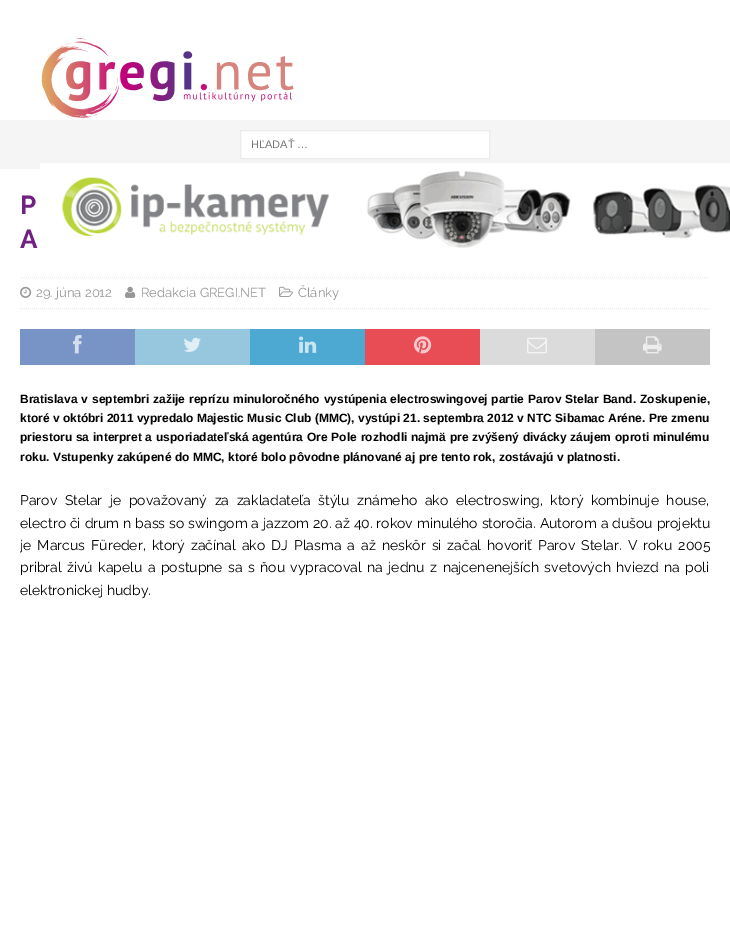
%!PS-Adobe-3.0
%%BoundingBox: 0 0 730 938
%%LanguageLevel: 3
%%Pages: 1
%%EndComments
%%BeginProlog
/drawimage { 5 dict begin { /h /w /y /x /name } { exch def } forall
  gsave x y translate w h scale
  w h 8 [w 0 0 h 0 0] name (r) file false 3 colorimage grestore end } def
%%EndProlog
%%BeginSetup
<< /PageSize [730 938] >> setpagedevice
%%EndSetup
%%Page: 1 1
0 938 translate 1 -1 scale
4 setmiterlimit
1 setgray
0 0 730 938 rectfill
(images/1.raw) 41 38 253 82 drawimage
0.961 setgray
0 120 730 49 rectfill
(images/2.raw) 40 163 690 86 drawimage
1 setgray
newpath 240.5 130.5 moveto 489.5 130.5 lineto 489.5 158.5 lineto 240.5 158.5 lineto closepath gsave fill grestore
0.922 setgray
stroke
[1 1] 0 setdash
newpath 20 277.5 moveto 710 277.5 lineto stroke
newpath 20 308.5 moveto 710 308.5 lineto stroke
(images/3.raw) 20 286 12 12 drawimage
(images/4.raw) 125 286 11 12 drawimage
(images/5.raw) 279 286 14 11 drawimage
0.471 0.576 0.776 setrgbcolor
20 329 115 36 rectfill
(images/6.raw) 73 335 9 19 drawimage
0.592 0.776 0.875 setrgbcolor
135 329 115 36 rectfill
(images/7.raw) 183 337 18 15 drawimage
0.302 0.663 0.824 setrgbcolor
250 329 115 36 rectfill
(images/8.raw) 299 336 18 17 drawimage
0.91 0.302 0.337 setrgbcolor
365 329 115 36 rectfill
(images/9.raw) 414 336 18 18 drawimage
0.859 setgray
480 329 115 36 rectfill
(images/10.raw) 527 337 20 17 drawimage
0.769 setgray
595 329 115 36 rectfill
(images/11.raw) 643 336 19 18 drawimage
/LiberationSans-Regular [11 0 0 -11 0 0] selectfont
0.459 setgray
251 148 moveto (HĽADAŤ …) show
/Raleway-Bold [26 0 0 -26 0 0] selectfont
0.439 0.129 0.506 setrgbcolor
20 214 moveto (P) show
20 248 moveto (A) show
/Raleway-Regular [13 0 0 -13 0 0] selectfont
0.592 setgray
36 297 moveto (29. júna 2012) show
141 297 moveto (Redakcia GREGI.NET) show
298 297 moveto (Články) show
/LiberationSans-Bold [12 0 0 -12 0 0] selectfont
0 setgray
20 403 moveto 0.6 0 32 (Bratislava v septembri zažije reprízu minuloročného vystúpenia electroswingovej partie Parov Stelar Band. Zoskupenie,) widthshow
20 422 moveto (ktoré v októbri 2011 vypredalo Majestic Music Club \(MMC\), vystúpi 21. septembra 2012 v NTC Sibamac Aréne. Pre zmenu) show
20 441 moveto 0.5 0 32 (priestoru sa interpret a usporiadateľská agentúra Ore Pole rozhodli najmä pre zvýšený divácky záujem oproti minulému) widthshow
20 461 moveto (roku. Vstupenky zakúpené do MMC, ktoré bolo pôvodne plánované aj pre tento rok, zostávajú v platnosti.) show
/Raleway-Regular [14 0 0 -14 0 0] selectfont
20 505 moveto 4 0 32 (Parov Stelar je považovaný za zakladateľa štýlu známeho ako electroswing, ktorý kombinuje house,) widthshow
20 528 moveto 0.4 0 32 (electro či drum n bass so swingom a jazzom 20. až 40. rokov minulého storočia. Autorom a dušou projektu) widthshow
gsave
20 189 690 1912 rectclip
20 550 moveto 2.5 0 32 (je Marcus Füreder, ktorý začínal ako DJ Plasma a až neskôr si začal hovoriť Parov Stelar. V roku 2005) widthshow
grestore
20 572 moveto 1.9 0 32 (pribral živú kapelu a postupne sa s ňou vypracoval na jednu z najcenenejších svetových hviezd na poli) widthshow
20 595 moveto (elektronickej hudby.) show
showpage
%%EOF
